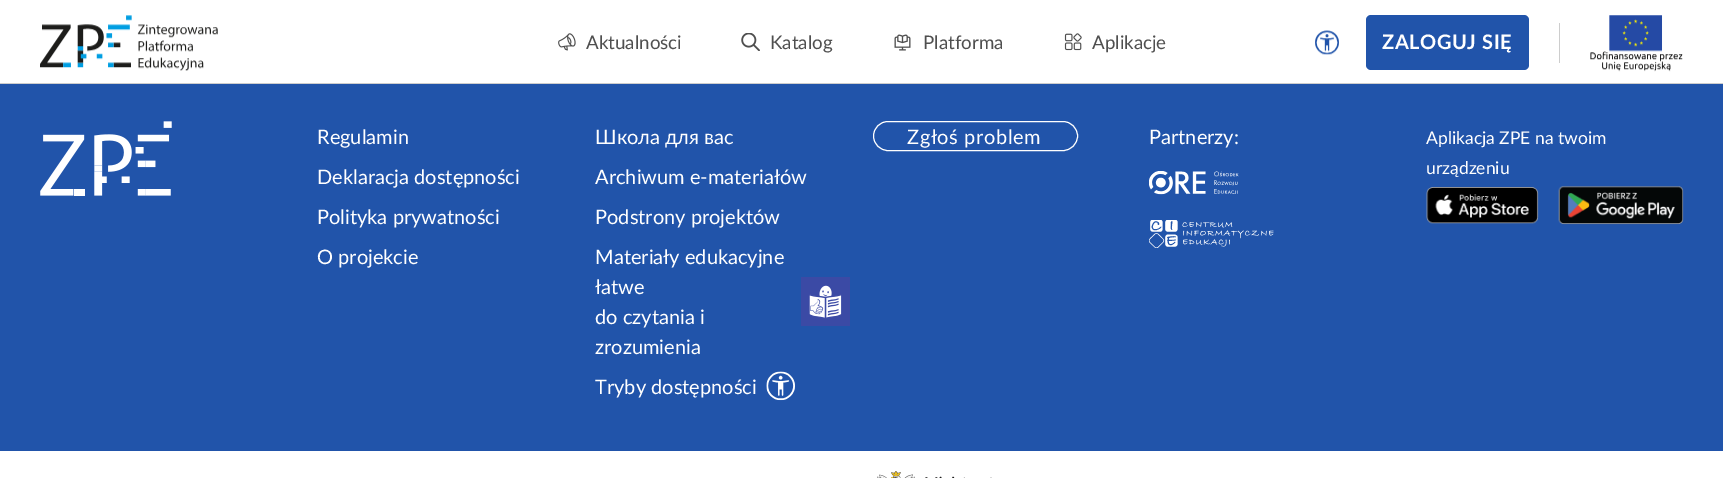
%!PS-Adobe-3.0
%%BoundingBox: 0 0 1723 478
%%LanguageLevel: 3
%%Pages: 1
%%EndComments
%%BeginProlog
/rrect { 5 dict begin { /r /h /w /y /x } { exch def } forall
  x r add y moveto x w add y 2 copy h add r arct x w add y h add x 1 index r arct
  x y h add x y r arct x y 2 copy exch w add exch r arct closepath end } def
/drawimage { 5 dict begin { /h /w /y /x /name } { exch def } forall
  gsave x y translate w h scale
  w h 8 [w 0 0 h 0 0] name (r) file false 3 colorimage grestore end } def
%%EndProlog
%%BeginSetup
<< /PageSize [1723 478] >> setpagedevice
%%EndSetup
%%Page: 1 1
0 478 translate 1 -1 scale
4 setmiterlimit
1 setgray
0 0 1723 478 rectfill
(images/1.raw) 40 15 178 56 drawimage
(images/2.raw) 558 33 18 18 drawimage
(images/3.raw) 741 33 19 18 drawimage
(images/4.raw) 894 34 17 17 drawimage
(images/5.raw) 1064 33 18 18 drawimage
(images/6.raw) 1315 30 24 25 drawimage
0.129 0.329 0.667 setrgbcolor
1366 15 163 55 5 rrect fill
0.804 setgray
1559 23 1 40 rectfill
(images/7.raw) 1590 15 93 57 drawimage
0 83 1723 1 rectfill
0.129 0.329 0.667 setrgbcolor
0 84 1723 367 rectfill
(images/8.raw) 40 121 132 75 drawimage
(images/9.raw) 801 277 49 49 drawimage
(images/10.raw) 766 371 29 30 drawimage
1 setgray
873.5 121.5 204 29 14.5 rrect stroke
(images/11.raw) 1149 171 90 24 drawimage
(images/12.raw) 1149 220 125 28 drawimage
(images/13.raw) 1426 187 113 37 drawimage
(images/14.raw) 1558 186 126 39 drawimage
(images/15.raw) 877 471 115 7 drawimage
/Lato-Regular [18.75 0 0 -18.75 0 0] selectfont
0.31 setgray
586 49 moveto (Aktualności) show
770 49 moveto (Katalog) show
923 49 moveto (Platforma) show
1092 49 moveto (Aplikacje) show
/Lato-Bold [20 0 0 -20 0 0] selectfont
1 setgray
1382 49 moveto 0.6 0 (ZALOGUJ SIĘ) ashow
/Lato-Regular [20 0 0 -20 0 0] selectfont
317 144 moveto (Regulamin) show
317 184 moveto (Deklaracja dostępności) show
317 224 moveto (Polityka prywatności) show
317 264 moveto (O projekcie) show
595 144 moveto (Школа для вас) show
595 184 moveto (Archiwum e-materiałów) show
595 224 moveto (Podstrony projektów) show
595 264 moveto (Materiały edukacyjne) show
595 294 moveto (łatwe) show
595 324 moveto (do czytania i) show
595 354 moveto (zrozumienia) show
595 394 moveto (Tryby dostępności) show
907 144 moveto 0.6 0 (Zgłoś problem) ashow
1149 144 moveto (Partnerzy:) show
/Lato-Regular [17.5 0 0 -17.5 0 0] selectfont
1426 144 moveto (Aplikacja ZPE na twoim) show
1426 174 moveto (urządzeniu) show
showpage
%%EOF
